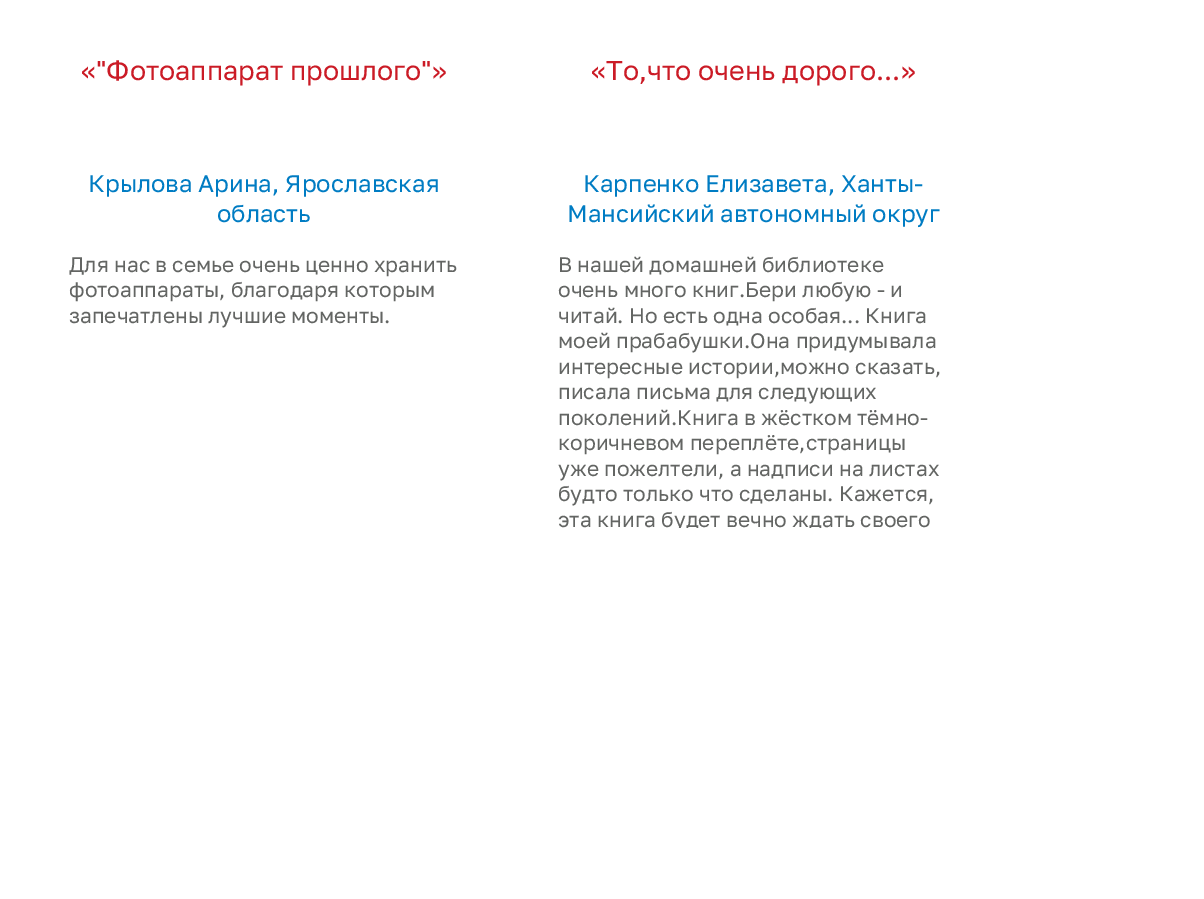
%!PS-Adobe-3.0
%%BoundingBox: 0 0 1204 899
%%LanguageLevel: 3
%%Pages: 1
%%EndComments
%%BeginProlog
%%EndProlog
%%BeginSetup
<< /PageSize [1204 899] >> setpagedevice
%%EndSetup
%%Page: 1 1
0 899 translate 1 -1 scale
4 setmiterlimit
1 setgray
0 0 1204 899 rectfill
/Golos-Regular [27 0 0 -27 0 0] selectfont
0.796 0.106 0.149 setrgbcolor
81 80 moveto («"Фотоаппарат прошлого"») show
/Golos-Regular [24 0 0 -24 0 0] selectfont
0 0.486 0.765 setrgbcolor
88 192 moveto (Крылова Арина, Ярославская) show
217 222 moveto (область) show
/Golos-Regular [21 0 0 -21 0 0] selectfont
0.388 0.396 0.388 setrgbcolor
69 272 moveto (Для нас в семье очень ценно хранить) show
69 297 moveto (фотоаппараты, благодаря которым) show
69 323 moveto (запечатлены лучшие моменты.) show
/Golos-Regular [27 0 0 -27 0 0] selectfont
0.796 0.106 0.149 setrgbcolor
591 80 moveto («То,что очень дорого...») show
/Golos-Regular [24 0 0 -24 0 0] selectfont
0 0.486 0.765 setrgbcolor
583 192 moveto (Карпенко Елизавета, Ханты-) show
567 222 moveto (Мансийский автономный округ) show
/Golos-Regular [21 0 0 -21 0 0] selectfont
0.388 0.396 0.388 setrgbcolor
558 272 moveto (В нашей домашней библиотеке) show
558 297 moveto (очень много книг.Бери любую - и) show
558 323 moveto (читай. Но есть одна особая... Книга) show
558 348 moveto (моей прабабушки.Она придумывала) show
558 374 moveto (интересные истории,можно сказать,) show
558 399 moveto (писала письма для следующих) show
558 425 moveto (поколений.Книга в жёстком тёмно-) show
558 450 moveto (коричневом переплёте,страницы) show
558 476 moveto (уже пожелтели, а надписи на листах) show
558 501 moveto (будто только что сделаны. Кажется,) show
gsave
528 251 450 277 rectclip
558 527 moveto (эта книга будет вечно ждать своего) show
grestore
showpage
%%EOF
